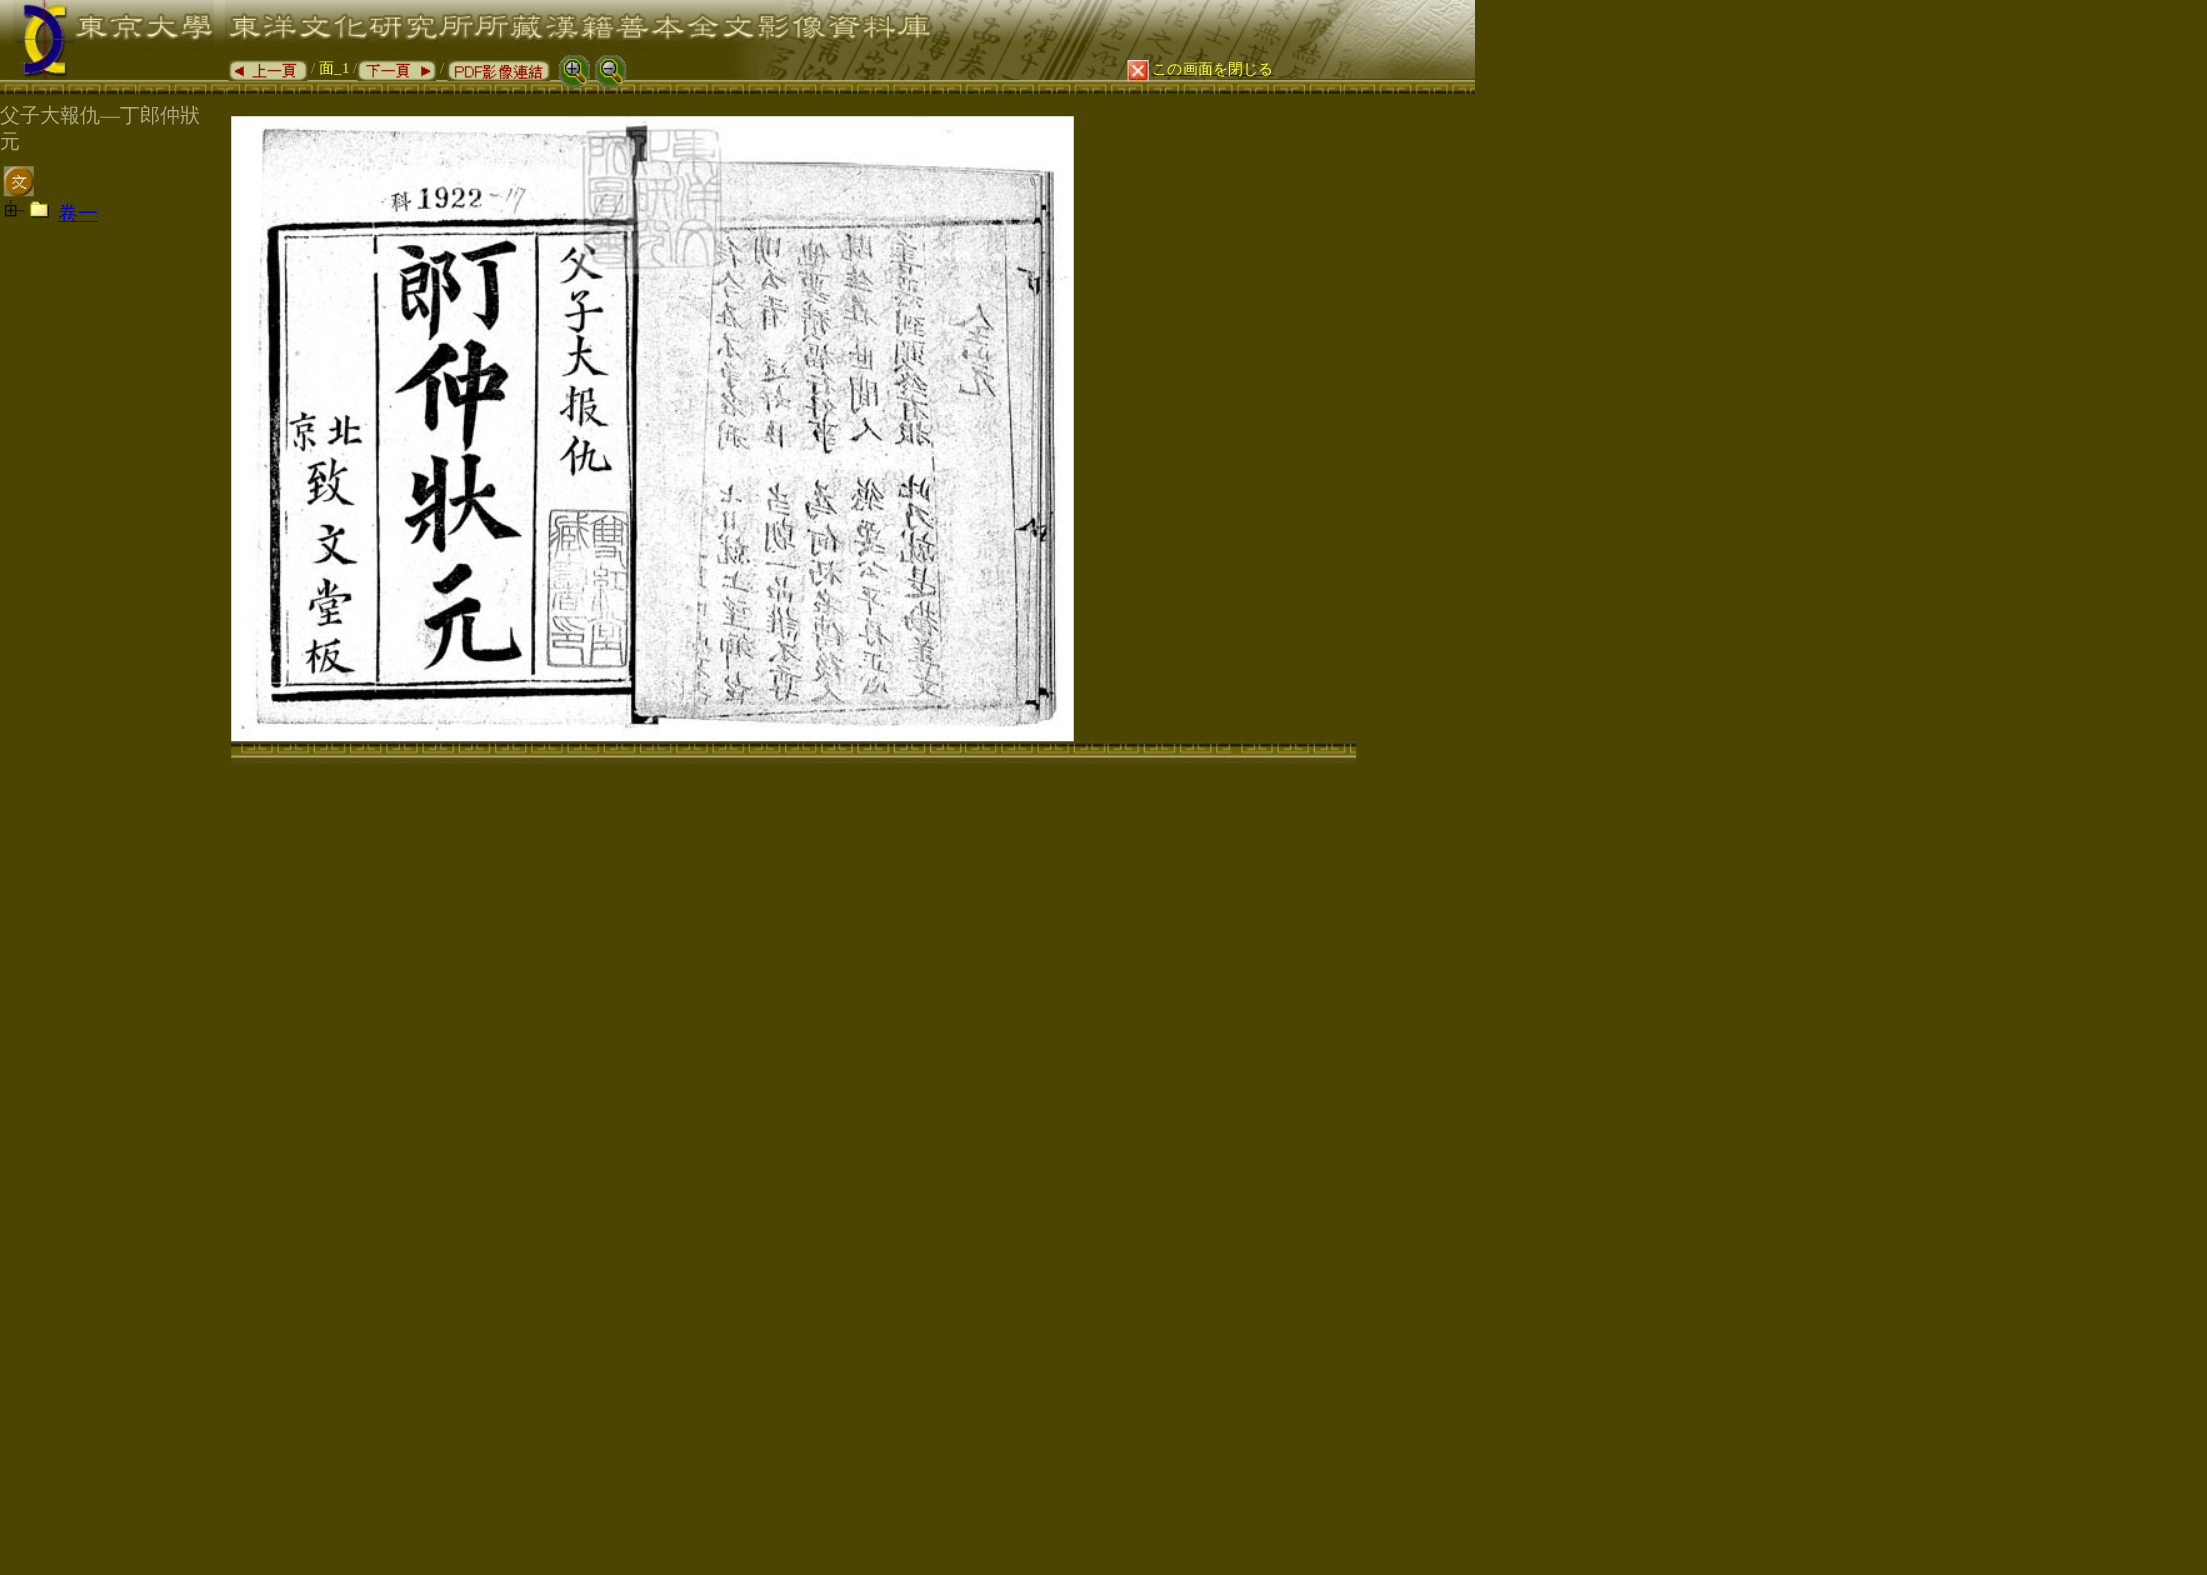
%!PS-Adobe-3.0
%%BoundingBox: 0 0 2207 1575
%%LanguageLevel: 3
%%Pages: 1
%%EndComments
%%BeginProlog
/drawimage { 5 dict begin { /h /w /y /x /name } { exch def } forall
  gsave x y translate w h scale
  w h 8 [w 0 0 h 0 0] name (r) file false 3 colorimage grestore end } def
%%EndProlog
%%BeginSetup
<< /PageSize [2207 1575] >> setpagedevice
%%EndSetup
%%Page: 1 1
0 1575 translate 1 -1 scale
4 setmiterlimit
0.298 0.271 0.004 setrgbcolor
0 0 2207 1575 rectfill
(images/1.raw) 225 0 1250 94 drawimage
(images/2.raw) 228 60 80 22 drawimage
(images/4.raw) 447 60 103 22 drawimage
(images/5.raw) 558 54 32 34 drawimage
(images/6.raw) 594 54 33 34 drawimage
(images/7.raw) 1127 60 22 22 drawimage
0 0 0.933 setrgbcolor
1153 75 121 1 rectfill
(images/9.raw) 231 741 1126 23 drawimage
(images/8.raw) 231 116 843 626 drawimage
(images/10.raw) 0 0 225 96 drawimage
(images/11.raw) 12 0 202 96 drawimage
(images/12.raw) 3 166 31 31 drawimage
(images/13.raw) 4 200 20 17 drawimage
(images/14.raw) 29 201 20 17 drawimage
58 221 40 1 rectfill
/LiberationSerif-Regular [15 0 0 -15 0 0] selectfont
0.643 0.624 0.475 setrgbcolor
311 73 moveto (/) show
/WenQuanYiZenHei-Medium [15 0 0 -15 0 0] selectfont
1 1 0.2 setrgbcolor
319 73 moveto (面) show
/LiberationSerif-Regular [15 0 0 -15 0 0] selectfont
334 73 moveto (_1) show
0.643 0.624 0.475 setrgbcolor
353 73 moveto (/) show
(images/3.raw) 357 60 80 22 drawimage
440 73 moveto (/) show
/WenQuanYiZenHei-Medium [15 0 0 -15 0 0] selectfont
1 1 0.2 setrgbcolor
1152 74 moveto (この画面を閉じる) show
/WenQuanYiZenHei-Medium [20 0 0 -20 0 0] selectfont
0.69 0.675 0.529 setrgbcolor
0 122 moveto (父子大報仇) show
/LiberationSerif-Regular [20 0 0 -20 0 0] selectfont
100 122 moveto (―) show
/WenQuanYiZenHei-Medium [20 0 0 -20 0 0] selectfont
120 122 moveto (丁郎仲狀) show
0 148 moveto (元) show
0 0 0.933 setrgbcolor
58 220 moveto (卷一) show
showpage
%%EOF
